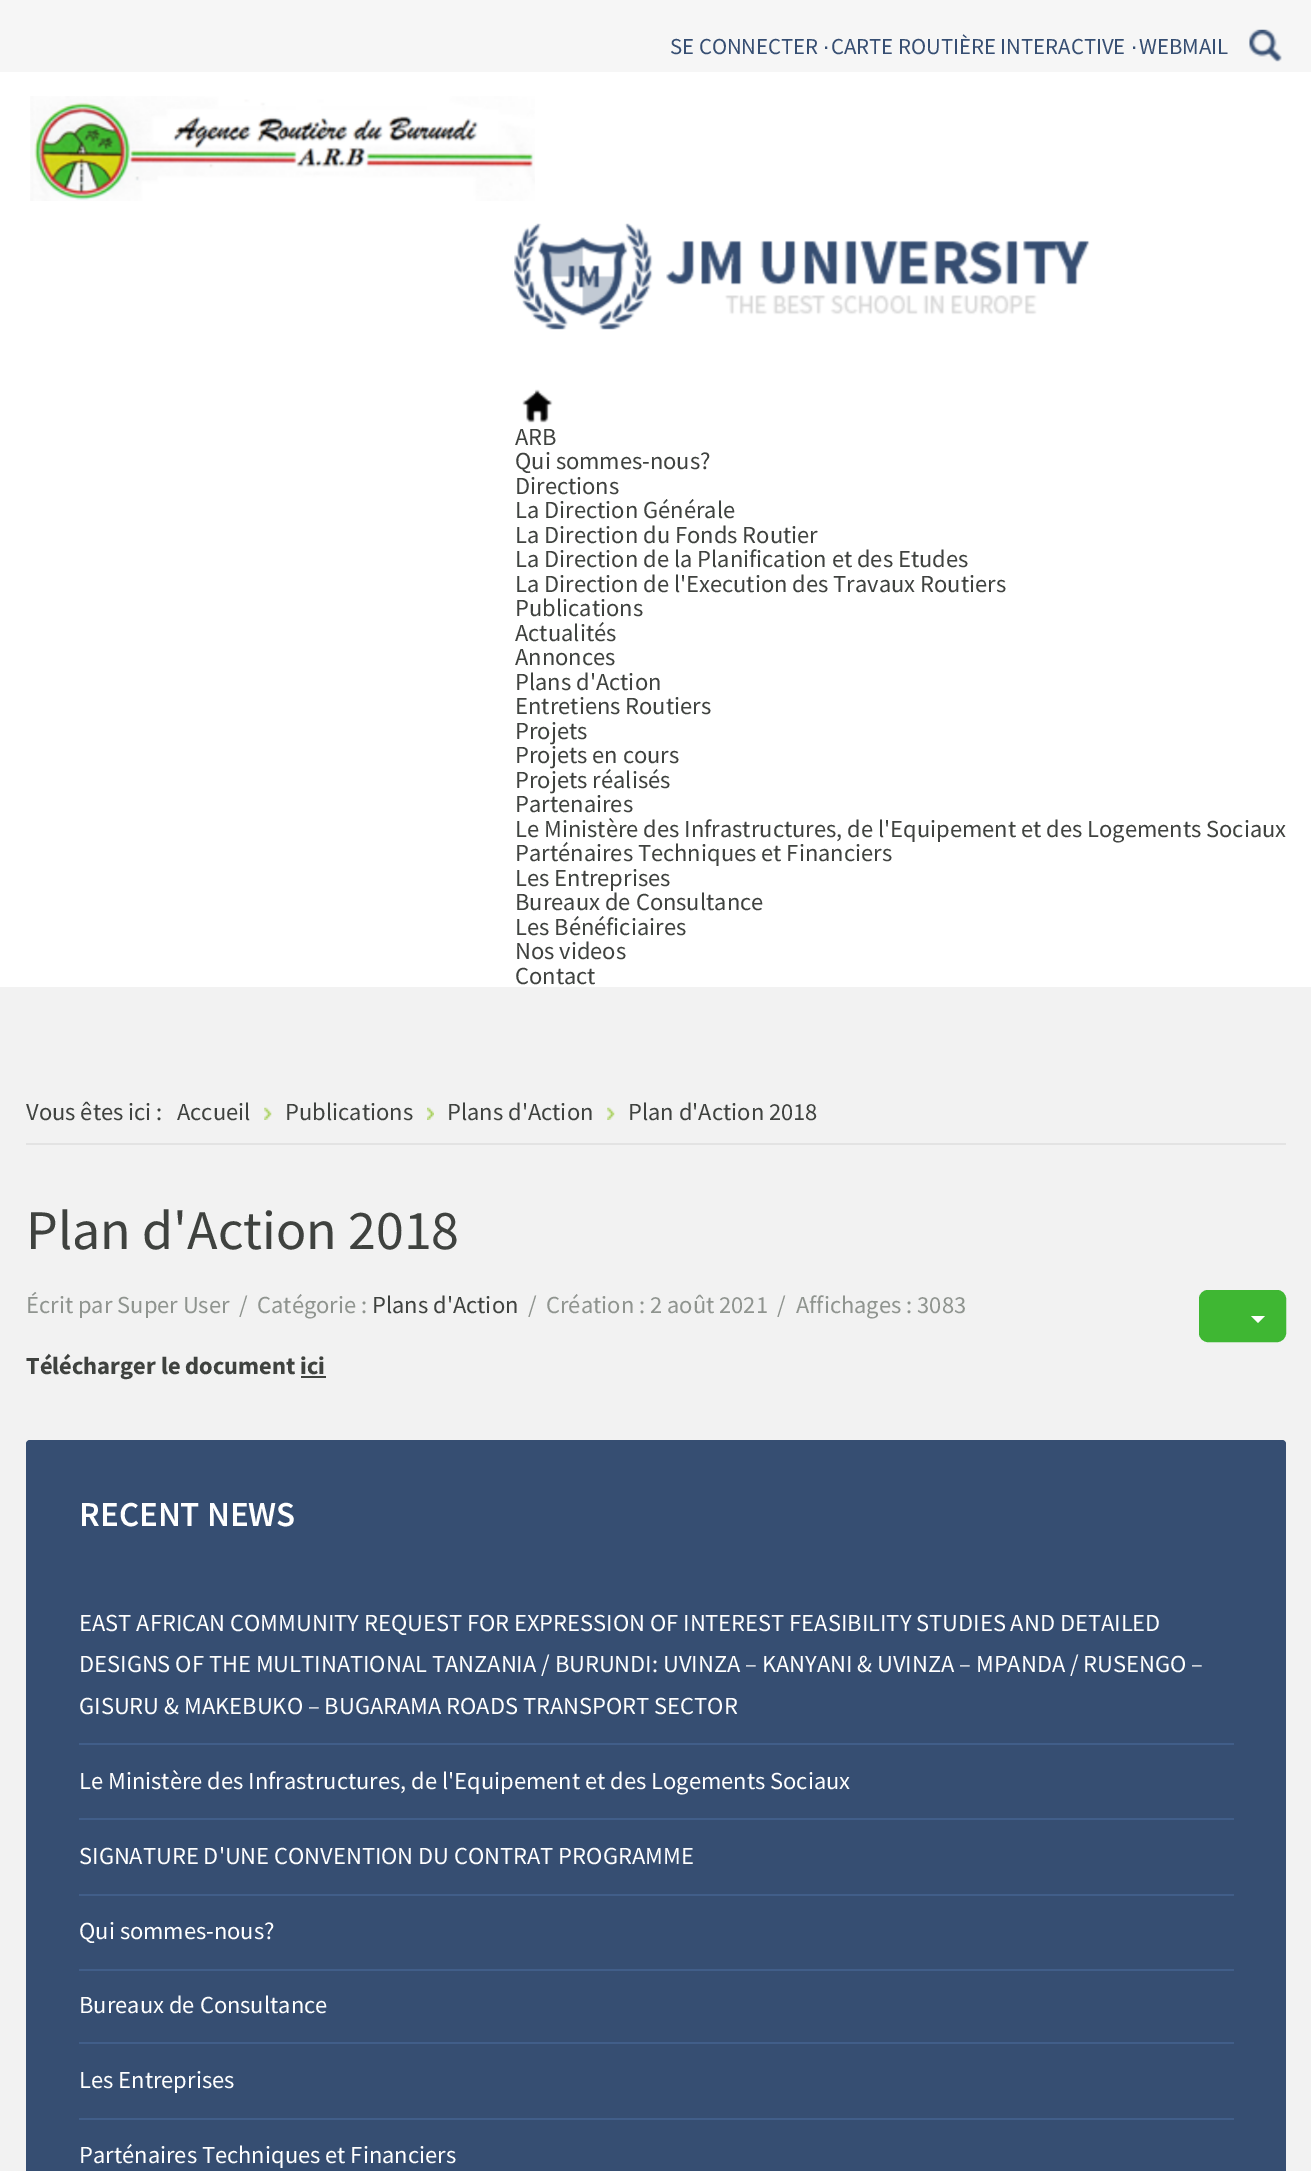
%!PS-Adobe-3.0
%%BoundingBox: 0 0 1311 2171
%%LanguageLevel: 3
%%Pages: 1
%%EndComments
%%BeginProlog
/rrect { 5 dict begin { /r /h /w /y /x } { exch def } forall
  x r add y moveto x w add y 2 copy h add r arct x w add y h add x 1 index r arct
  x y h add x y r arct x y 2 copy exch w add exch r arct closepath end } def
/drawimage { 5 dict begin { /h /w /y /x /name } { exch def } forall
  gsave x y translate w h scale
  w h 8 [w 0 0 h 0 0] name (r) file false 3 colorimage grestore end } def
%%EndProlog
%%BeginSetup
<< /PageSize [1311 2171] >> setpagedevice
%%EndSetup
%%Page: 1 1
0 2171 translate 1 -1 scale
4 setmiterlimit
0.949 setgray
0 0 1311 2171 rectfill
0.965 setgray
0 0 1311 72 rectfill
(images/1.raw) 1249 29 33 33 drawimage
1 setgray
0 72 1311 915 rectfill
(images/2.raw) 30 96 505 105 drawimage
(images/3.raw) 514 223 576 107 drawimage
(images/4.raw) 522 389 31 34 drawimage
0.89 setgray
26 1143 1260 2 rectfill
(images/5.raw) 264 1107 8 13 drawimage
(images/6.raw) 427 1107 7 13 drawimage
(images/5.raw) 607 1107 8 13 drawimage
0.247 0.718 0.2 setrgbcolor
1201 1292 83 48 7 rrect gsave fill grestore
4 setlinewidth
stroke
1 setgray
newpath 1251 1316 moveto 1265 1316 lineto 1258 1323 lineto closepath fill
0.247 0.259 0.247 setrgbcolor
301 1376 25 2 rectfill
0.212 0.306 0.447 setrgbcolor
26 1440 1260 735 4 rrect fill
0.255 0.369 0.537 setrgbcolor
79 1743 1155 2 rectfill
79 1818 1155 2 rectfill
79 1894 1155 2 rectfill
79 1969 1155 2 rectfill
79 2042 1155 2 rectfill
79 2118 1155 2 rectfill
/SourceSansPro-Regular [22.75 0 0 -22.75 0 0] selectfont
0.212 0.306 0.447 setrgbcolor
670 54 moveto (SE CONNECTER) show
/LiberationSans-Regular [22.75 0 0 -22.75 0 0] selectfont
823 54 moveto (∙) show
/SourceSansPro-Regular [22.75 0 0 -22.75 0 0] selectfont
831 54 moveto (CARTE ROUTIÈRE INTERACTIVE) show
/LiberationSans-Regular [22.75 0 0 -22.75 0 0] selectfont
1131 54 moveto (∙) show
/SourceSansPro-Regular [22.75 0 0 -22.75 0 0] selectfont
1139 54 moveto (WEBMAIL) show
/SourceSansPro-Regular [24.5 0 0 -24.5 0 0] selectfont
0.247 0.259 0.247 setrgbcolor
515 445 moveto (ARB) show
515 469 moveto (Qui sommes-nous?) show
515 494 moveto (Directions) show
515 518 moveto (La Direction Générale) show
515 543 moveto (La Direction du Fonds Routier) show
515 567 moveto (La Direction de la Planification et des Etudes) show
515 592 moveto (La Direction de l'Execution des Travaux Routiers) show
515 616 moveto (Publications) show
515 641 moveto (Actualités) show
515 665 moveto (Annonces) show
515 690 moveto (Plans d'Action) show
515 714 moveto (Entretiens Routiers) show
515 739 moveto (Projets) show
515 763 moveto (Projets en cours) show
515 788 moveto (Projets réalisés) show
515 812 moveto (Partenaires) show
515 837 moveto (Le Ministère des Infrastructures, de l'Equipement et des Logements Sociaux) show
515 861 moveto (Parténaires Techniques et Financiers) show
515 886 moveto (Les Entreprises) show
515 910 moveto (Bureaux de Consultance) show
515 935 moveto (Les Bénéficiaires) show
515 959 moveto (Nos videos) show
515 984 moveto (Contact) show
26 1120 moveto (Vous êtes ici :) show
177 1120 moveto (Accueil) show
285 1120 moveto (Publications) show
447 1120 moveto (Plans d'Action) show
628 1120 moveto (Plan d'Action 2018) show
/SourceSansPro-Regular [56 0 0 -56 0 0] selectfont
26 1249 moveto (Plan d'Action 2018) show
/SourceSansPro-Regular [24.5 0 0 -24.5 0 0] selectfont
0.561 0.58 0.561 setrgbcolor
26 1313 moveto (Écrit par Super User) show
239 1313 moveto (/) show
257 1313 moveto (Catégorie :) show
0.247 0.259 0.247 setrgbcolor
372 1313 moveto (Plans d'Action) show
0.561 0.58 0.561 setrgbcolor
528 1313 moveto (/) show
546 1313 moveto (Création : 2 août 2021) show
777 1313 moveto (/) show
796 1313 moveto (Affichages : 3083) show
/SourceSansPro-Bold [24.5 0 0 -24.5 0 0] selectfont
0.247 0.259 0.247 setrgbcolor
26 1374 moveto (Télécharger le document ici) show
/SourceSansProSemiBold-SemiBold [35 0 0 -35 0 0] selectfont
1 setgray
79 1526 moveto (RECENT NEWS) show
/SourceSansPro-Regular [24.5 0 0 -24.5 0 0] selectfont
79 1631 moveto (EAST AFRICAN COMMUNITY REQUEST FOR EXPRESSION OF INTEREST FEASIBILITY STUDIES AND DETAILED) show
79 1672 moveto (DESIGNS OF THE MULTINATIONAL TANZANIA / BURUNDI: UVINZA – KANYANI & UVINZA – MPANDA / RUSENGO –) show
79 1714 moveto (GISURU & MAKEBUKO – BUGARAMA ROADS TRANSPORT SECTOR) show
79 1789 moveto (Le Ministère des Infrastructures, de l'Equipement et des Logements Sociaux) show
79 1864 moveto (SIGNATURE D'UNE CONVENTION DU CONTRAT PROGRAMME) show
79 1939 moveto (Qui sommes-nous?) show
79 2013 moveto (Bureaux de Consultance) show
79 2088 moveto (Les Entreprises) show
79 2163 moveto (Parténaires Techniques et Financiers) show
showpage
%%EOF
